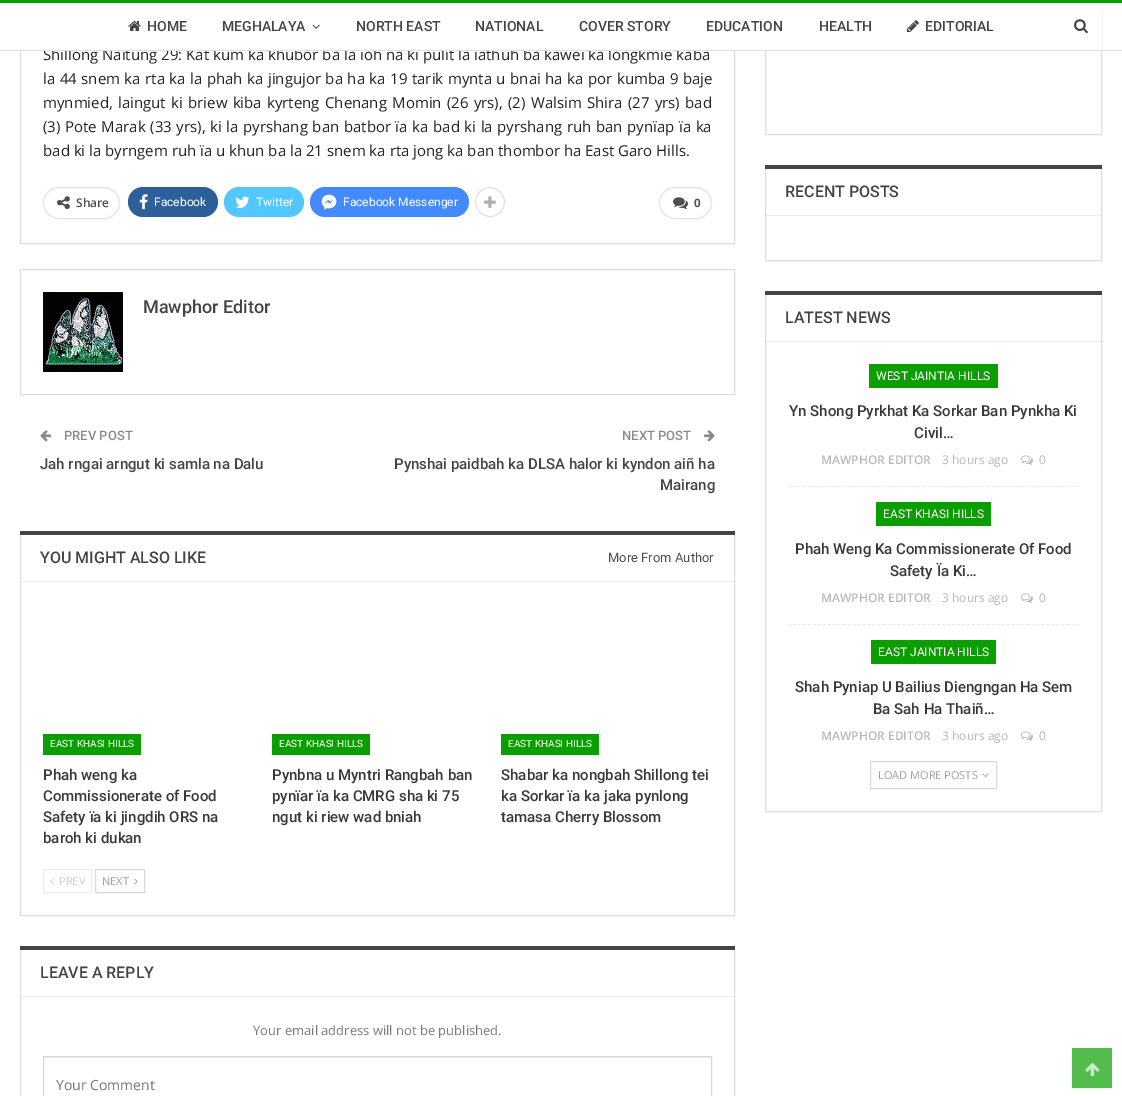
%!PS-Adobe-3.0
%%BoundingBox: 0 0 1122 1096
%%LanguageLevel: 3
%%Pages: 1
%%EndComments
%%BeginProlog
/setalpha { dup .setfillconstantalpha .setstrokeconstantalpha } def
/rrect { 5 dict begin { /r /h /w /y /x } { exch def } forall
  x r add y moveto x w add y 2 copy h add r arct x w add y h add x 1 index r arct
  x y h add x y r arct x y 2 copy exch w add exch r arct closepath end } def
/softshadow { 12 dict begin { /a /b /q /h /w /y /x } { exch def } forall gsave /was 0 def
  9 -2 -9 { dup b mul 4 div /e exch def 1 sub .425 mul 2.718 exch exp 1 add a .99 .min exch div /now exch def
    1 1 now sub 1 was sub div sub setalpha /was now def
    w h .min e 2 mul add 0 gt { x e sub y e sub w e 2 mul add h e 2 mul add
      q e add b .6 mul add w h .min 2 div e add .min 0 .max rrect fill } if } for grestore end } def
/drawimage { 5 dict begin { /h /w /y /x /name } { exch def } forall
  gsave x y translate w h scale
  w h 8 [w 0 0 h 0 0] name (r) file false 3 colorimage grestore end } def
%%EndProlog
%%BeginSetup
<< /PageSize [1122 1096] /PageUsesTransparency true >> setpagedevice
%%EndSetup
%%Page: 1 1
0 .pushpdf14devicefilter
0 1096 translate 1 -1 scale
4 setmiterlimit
1 setgray
0 0 1122 1096 rectfill
0.871 setgray
20.5 -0.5 714 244 rectstroke
765.5 -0.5 336 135 rectstroke
0.039 0.62 0.004 setrgbcolor
0 0 1122 3 rectfill
0.886 setgray
43.5 187.5 76 31 15.5 rrect stroke
(images/5.raw) 57 196 13 14 drawimage
0.176 0.373 0.604 setrgbcolor
128 187 90 30 15 rrect fill
(images/6.raw) 139 194 9 16 drawimage
0.325 0.78 1 setrgbcolor
224 187 80 30 15 rrect fill
(images/7.raw) 235 196 15 12 drawimage
0.267 0.541 1 setrgbcolor
310 187 159 30 15 rrect fill
(images/8.raw) 321 194 16 16 drawimage
0.886 setgray
newpath 490 202 14.5 0 360 arc closepath stroke
(images/9.raw) 484 196 12 12 drawimage
659.5 187.5 52 31 15.5 rrect stroke
(images/10.raw) 673 197 15 12 drawimage
0.871 setgray
20.5 269.5 714 125 rectstroke
(images/11.raw) 43 292 80 80 drawimage
(images/12.raw) 40 430 12 12 drawimage
(images/13.raw) 704 430 11 12 drawimage
20.5 531.5 714 384 rectstroke
0.267 setgray
20 531 715 4 rectfill
0.07 setalpha
0 setgray
20 581 715 1 rectfill
1 setalpha
0.039 0.62 0.004 setrgbcolor
43 734 98 21 rectfill
272 734 98 21 rectfill
501 734 98 21 rectfill
0.925 setgray
43.5 869.5 48 23 rectstroke
(images/14.raw) 50 878 4 7 drawimage
0.847 setgray
95.5 869.5 49 23 rectstroke
(images/15.raw) 134 878 4 7 drawimage
0.871 setgray
20.5 946.5 714 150 rectstroke
0.267 setgray
20 946 715 4 rectfill
0.07 setalpha
0 setgray
20 996 715 1 rectfill
1 setalpha
0.925 setgray
44 1057 667 1 rectfill
0.847 setgray
43.5 1056.5 668 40 rectstroke
0.871 setgray
765.5 165.5 336 95 rectstroke
0.267 setgray
765 165 337 4 rectfill
0.07 setalpha
0 setgray
765 215 337 1 rectfill
1 setalpha
0.871 setgray
765.5 291.5 336 520 rectstroke
0.267 setgray
765 291 337 4 rectfill
0.07 setalpha
0 setgray
765 341 337 1 rectfill
1 setalpha
0.922 setgray
[3 1.97] 0 setdash
newpath 788 486.5 moveto 1079 486.5 lineto stroke
0.039 0.62 0.004 setrgbcolor
869 364 129 24 rectfill
(images/16.raw) 1021 455 12 10 drawimage
0.922 setgray
newpath 788 624.5 moveto 1079 624.5 lineto stroke
0.039 0.62 0.004 setrgbcolor
876 502 115 24 rectfill
(images/16.raw) 1021 593 12 10 drawimage
871 640 125 24 rectfill
(images/16.raw) 1021 731 12 10 drawimage
0.847 setgray
[] 0 setdash
870.5 761.5 126 27 rectstroke
(images/17.raw) 982 773 7 5 drawimage
0.302 setgray
1072 1049 40 40 0 1 0.09 softshadow
0.329 0.733 0.302 setrgbcolor
1072 1048 40 40 rectfill
(images/18.raw) 1085 1063 15 14 drawimage
/OpenSans-Regular [15 0 0 -15 0 0] selectfont
0.133 setgray
43 60 moveto (Shillong Naitung 29: Kat kum ka khubor ba la ïoh na ki pulit la ïathuh ba kawei ka longkmie kaba) show
1 setgray
20 3 1082 47 rectfill
(images/4.raw) 1074 19 14 15 drawimage
/Roboto-Medium [14 0 0 -14 0 0] selectfont
0.267 setgray
925 31 moveto (EDITORIAL) show
(images/3.raw) 907 20 12 12 drawimage
819 31 moveto (HEALTH) show
706 31 moveto (EDUCATION) show
579 31 moveto (COVER STORY) show
475 31 moveto (NATIONAL) show
356 31 moveto (NORTH EAST) show
(images/2.raw) 312 24 8 5 drawimage
222 31 moveto (MEGHALAYA) show
147 31 moveto (HOME) show
(images/1.raw) 128 21 13 10 drawimage
0.871 setgray
0 50 1122 1 rectfill
/OpenSans-Regular [15 0 0 -15 0 0] selectfont
0.133 setgray
43 84 moveto 0.6 0 32 (la 44 snem ka rta ka la phah ka jingujor ba ha ka 19 tarik mynta u bnai ha ka por kumba 9 baje) widthshow
43 108 moveto 1.4 0 32 (mynmied, laingut ki briew kiba kyrteng Chenang Momin \(26 yrs\), \(2\) Walsim Shira \(27 yrs\) bad) widthshow
43 132 moveto 0.7 0 32 (\(3\) Pote Marak \(33 yrs\), ki la pyrshang ban batbor ïa ka bad ki la pyrshang ruh ban pynïap ïa ka) widthshow
43 156 moveto (bad ki la byrngem ruh ïa u khun ba la 21 snem ka rta jong ka ban thombor ha East Garo Hills.) show
/OpenSans-SemiBold [12 0 0 -12 0 0] selectfont
0.302 setgray
76 207 moveto (Share) show
/Roboto-Regular [12 0 0 -12 0 0] selectfont
1 setgray
154 206 moveto (Facebook) show
256 206 moveto (Twitter) show
343 206 moveto (Facebook Messenger) show
/LiberationSans-Bold [12 0 0 -12 0 0] selectfont
0.302 setgray
694 207 moveto (0) show
/Roboto-Medium [18 0 0 -18 0 0] selectfont
0.267 setgray
143 313 moveto (Mawphor Editor) show
/Roboto-Medium [13 0 0 -13 0 0] selectfont
0.541 setgray
64 440 moveto (PREV POST) show
/Roboto-Medium [15 0 0 -15 0 0] selectfont
0.267 setgray
40 469 moveto (Jah rngai arngut ki samla na Dalu) show
/Roboto-Medium [13 0 0 -13 0 0] selectfont
0.541 setgray
622 440 moveto (NEXT POST) show
/Roboto-Medium [15 0 0 -15 0 0] selectfont
0.267 setgray
394 469 moveto (Pynshai paidbah ka DLSA halor ki kyndon aiñ ha) show
660 490 moveto (Mairang) show
/Roboto-Medium [16 0 0 -16 0 0] selectfont
40 563 moveto (YOU MIGHT ALSO LIKE) show
/Roboto-Regular [13 0 0 -13 0 0] selectfont
0.302 setgray
608 562 moveto (More From Author) show
/Roboto-Regular [10 0 0 -10 0 0] selectfont
1 setgray
50 747 moveto (EAST KHASI HILLS) show
/Roboto-Medium [15 0 0 -15 0 0] selectfont
0.22 setgray
43 780 moveto (Phah weng ka) show
43 801 moveto (Commissionerate of Food) show
43 822 moveto (Safety ïa ki jingdih ORS na) show
43 843 moveto (baroh ki dukan) show
/Roboto-Regular [10 0 0 -10 0 0] selectfont
1 setgray
279 747 moveto (EAST KHASI HILLS) show
/Roboto-Medium [15 0 0 -15 0 0] selectfont
0.22 setgray
272 780 moveto (Pynbna u Myntri Rangbah ban) show
272 801 moveto (pynïar ïa ka CMRG sha ki 75) show
272 822 moveto (ngut ki riew wad bniah) show
/Roboto-Regular [10 0 0 -10 0 0] selectfont
1 setgray
508 747 moveto (EAST KHASI HILLS) show
/Roboto-Medium [15 0 0 -15 0 0] selectfont
0.22 setgray
501 780 moveto (Shabar ka nongbah Shillong tei) show
501 801 moveto (ka Sorkar ïa ka jaka pynlong) show
501 822 moveto (tamasa Cherry Blossom) show
/OpenSans-Regular [11 0 0 -11 0 0] selectfont
0.812 setgray
59 885 moveto (PREV) show
0.62 setgray
102 885 moveto (NEXT) show
/Roboto-Medium [16 0 0 -16 0 0] selectfont
0.267 setgray
40 978 moveto (LEAVE A REPLY) show
/OpenSans-Regular [13 0 0 -13 0 0] selectfont
0.482 setgray
253 1035 moveto (Your email address will not be published.) show
/OpenSans-Regular [14 0 0 -14 0 0] selectfont
0.459 setgray
56 1090 moveto (Your Comment) show
/Roboto-Medium [16 0 0 -16 0 0] selectfont
0.267 setgray
785 197 moveto (RECENT POSTS) show
785 323 moveto (LATEST NEWS) show
/Roboto-Regular [12 0 0 -12 0 0] selectfont
1 setgray
876 380 moveto (WEST JAINTIA HILLS) show
/Roboto-Medium [15 0 0 -15 0 0] selectfont
0.22 setgray
789 416 moveto (Yn Shong Pyrkhat Ka Sorkar Ban Pynkha Ki) show
914 438 moveto (Civil…) show
/OpenSans-SemiBold [12 0 0 -12 0 0] selectfont
0.718 setgray
821 464 moveto (MAWPHOR EDITOR) show
/OpenSans-Regular [12 0 0 -12 0 0] selectfont
942 464 moveto (3 hours ago) show
1039 464 moveto (0) show
/Roboto-Regular [12 0 0 -12 0 0] selectfont
1 setgray
883 518 moveto (EAST KHASI HILLS) show
/Roboto-Medium [15 0 0 -15 0 0] selectfont
0.22 setgray
795 554 moveto (Phah Weng Ka Commissionerate Of Food) show
890 576 moveto (Safety Ïa Ki…) show
/OpenSans-SemiBold [12 0 0 -12 0 0] selectfont
0.718 setgray
821 602 moveto (MAWPHOR EDITOR) show
/OpenSans-Regular [12 0 0 -12 0 0] selectfont
942 602 moveto (3 hours ago) show
1039 602 moveto (0) show
/Roboto-Regular [12 0 0 -12 0 0] selectfont
1 setgray
878 656 moveto (EAST JAINTIA HILLS) show
/Roboto-Medium [15 0 0 -15 0 0] selectfont
0.22 setgray
795 692 moveto (Shah Pyniap U Bailius Diengngan Ha Sem) show
873 714 moveto (Ba Sah Ha Thaiñ…) show
/OpenSans-SemiBold [12 0 0 -12 0 0] selectfont
0.718 setgray
821 740 moveto (MAWPHOR EDITOR) show
/OpenSans-Regular [12 0 0 -12 0 0] selectfont
942 740 moveto (3 hours ago) show
1039 740 moveto (0) show
/OpenSans-Regular [11 0 0 -11 0 0] selectfont
0.62 setgray
878 779 moveto (LOAD MORE POSTS) show
.poppdf14devicefilter showpage
%%EOF
